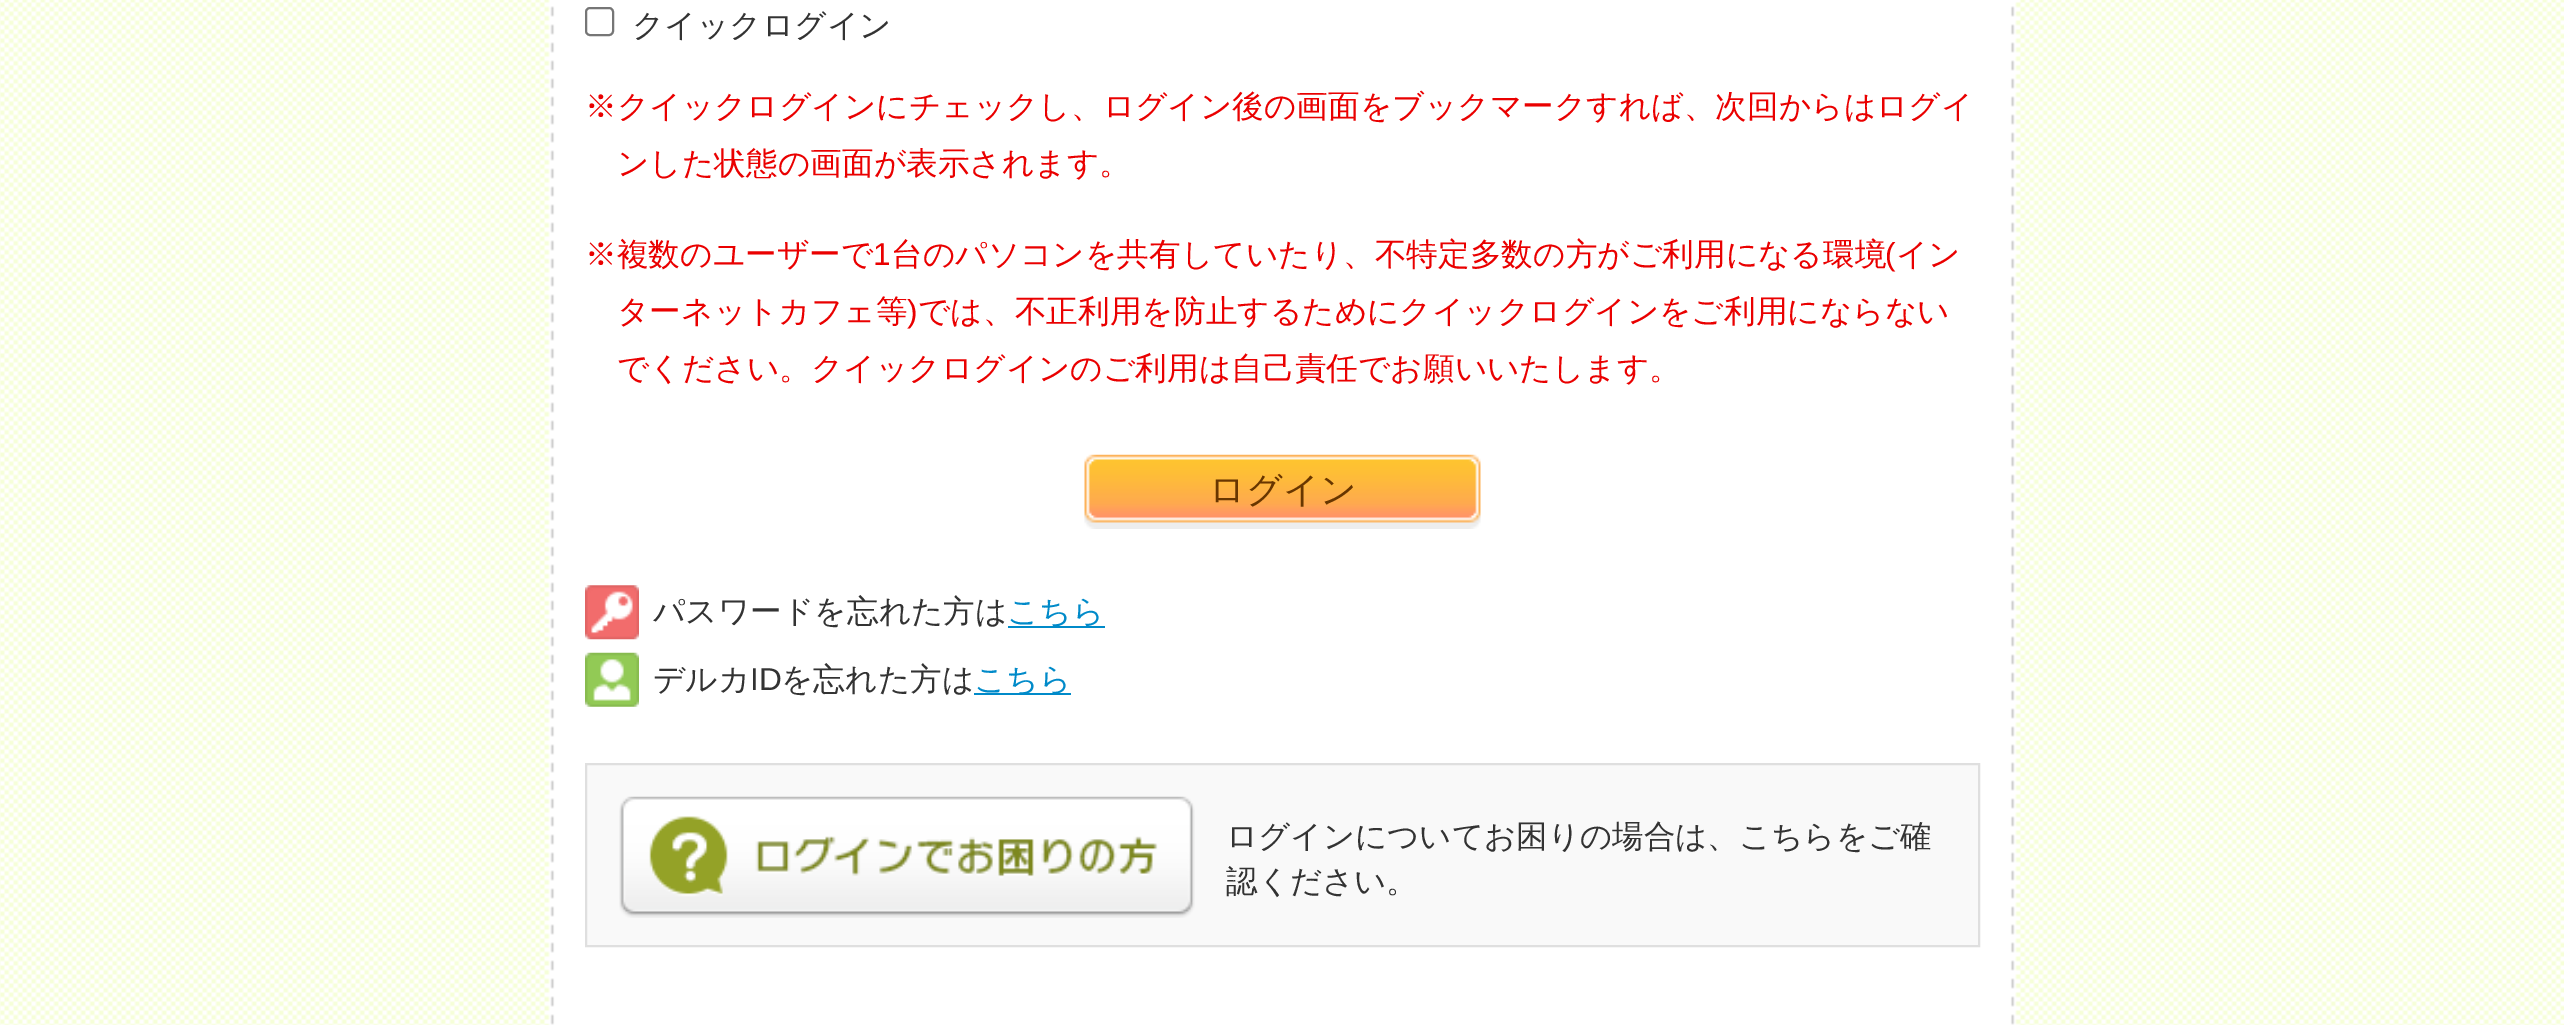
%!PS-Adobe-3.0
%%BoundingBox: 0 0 2564 1025
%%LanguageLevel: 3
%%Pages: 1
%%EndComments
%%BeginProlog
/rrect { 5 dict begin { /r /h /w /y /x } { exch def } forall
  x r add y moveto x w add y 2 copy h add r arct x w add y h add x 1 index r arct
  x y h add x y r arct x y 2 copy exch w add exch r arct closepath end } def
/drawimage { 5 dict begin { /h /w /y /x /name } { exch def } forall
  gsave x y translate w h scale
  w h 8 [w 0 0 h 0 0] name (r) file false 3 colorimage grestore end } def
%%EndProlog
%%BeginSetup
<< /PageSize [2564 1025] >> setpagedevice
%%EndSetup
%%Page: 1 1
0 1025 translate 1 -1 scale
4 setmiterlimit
1 setgray
0 0 2564 1025 rectfill
(images/1.raw) 0 0 2564 1025 drawimage
0.463 setgray
2 setlinewidth
586 8 27 27 4 rrect stroke
(images/2.raw) 1084 454 397 75 drawimage
(images/3.raw) 585 585 54 55 drawimage
0 0.541 0.788 setrgbcolor
1008 626 97 2 rectfill
(images/4.raw) 585 652 54 55 drawimage
974 693 97 2 rectfill
0.976 setgray
newpath 586 764 moveto 1979 764 lineto 1979 946 lineto 586 946 lineto closepath gsave fill grestore
0.875 setgray
stroke
(images/5.raw) 619 796 576 122 drawimage
/WenQuanYiZenHei-Medium [31.7 0 0 -31.7 0 0] selectfont
0.2 setgray
632 36 moveto (クイックログイン) show
0.918 0 0 setrgbcolor
585 117 moveto (※クイックログインにチェックし、ログイン後の画面をブックマークすれば、次回からはログイ) show
617 174 moveto (ンした状態の画面が表示されます。) show
585 265 moveto (※複数のユーザーで) show
/LiberationSans-Regular [31.7 0 0 -31.7 0 0] selectfont
873 265 moveto (1) show
/WenQuanYiZenHei-Medium [31.7 0 0 -31.7 0 0] selectfont
891 265 moveto (台のパソコンを共有していたり、不特定多数の方がご利用になる環境) show
/LiberationSans-Regular [31.7 0 0 -31.7 0 0] selectfont
1885 265 moveto (\() show
/WenQuanYiZenHei-Medium [31.7 0 0 -31.7 0 0] selectfont
1896 265 moveto (イン) show
617 322 moveto (ターネットカフェ等) show
/LiberationSans-Regular [31.7 0 0 -31.7 0 0] selectfont
907 322 moveto (\)) show
/WenQuanYiZenHei-Medium [31.7 0 0 -31.7 0 0] selectfont
918 322 moveto (では、不正利用を防止するためにクイックログインをご利用にならない) show
617 379 moveto (でください。クイックログインのご利用は自己責任でお願いいたします。) show
/WenQuanYiZenHei-Medium [36 0 0 -36 0 0] selectfont
0.408 0.212 0 setrgbcolor
1209 502 moveto (ログイン) show
/WenQuanYiZenHei-Medium [31.7 0 0 -31.7 0 0] selectfont
0.2 setgray
653 622 moveto (パスワードを忘れた方は) show
0 0.541 0.788 setrgbcolor
1007 622 moveto (こちら) show
0.2 setgray
653 690 moveto (デルカ) show
/LiberationSans-Regular [31.7 0 0 -31.7 0 0] selectfont
750 690 moveto (ID) show
/WenQuanYiZenHei-Medium [31.7 0 0 -31.7 0 0] selectfont
781 690 moveto (を忘れた方は) show
0 0.541 0.788 setrgbcolor
974 690 moveto (こちら) show
/WenQuanYiZenHei-Medium [31.5 0 0 -31.5 0 0] selectfont
0.2 setgray
1226 847 moveto (ログインについてお困りの場合は、こちらをご確) show
1226 892 moveto (認ください。) show
showpage
%%EOF
